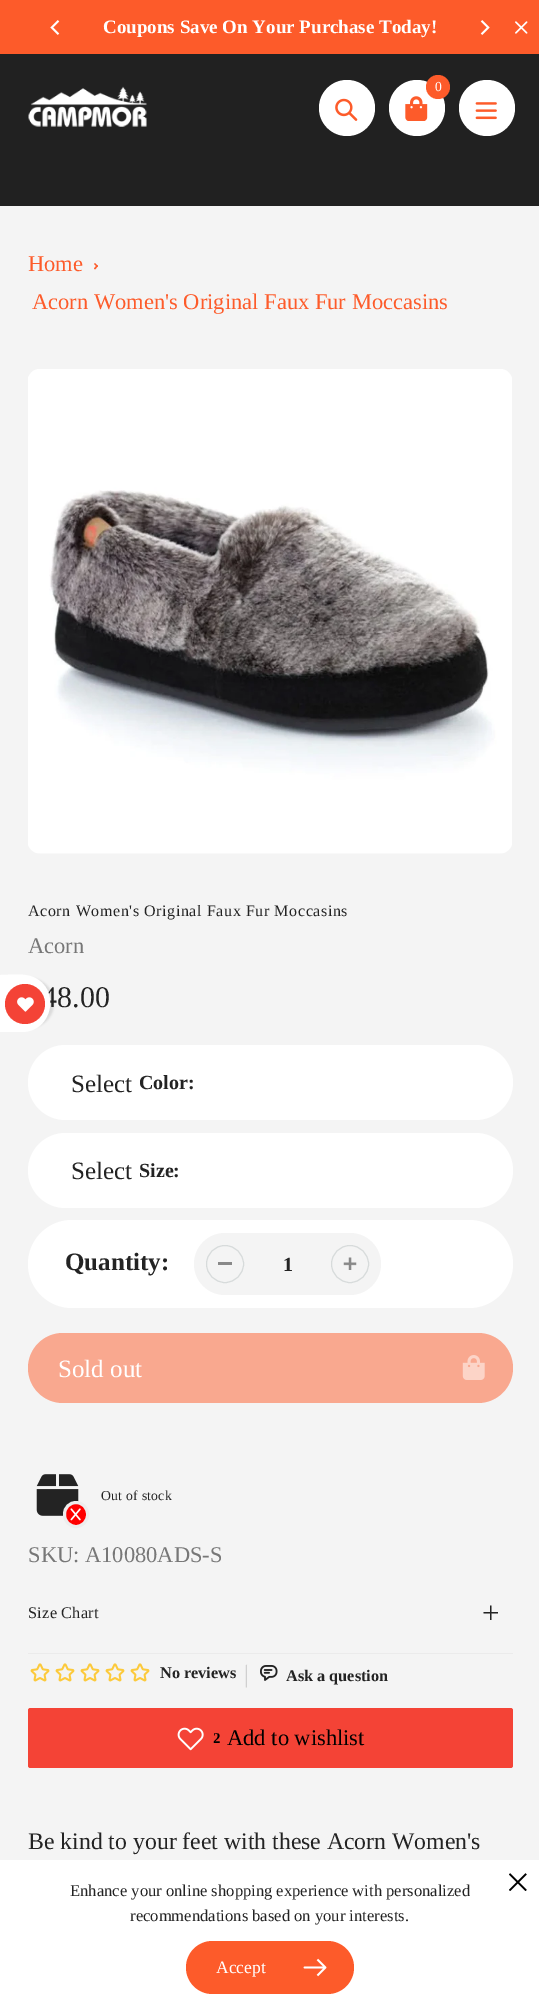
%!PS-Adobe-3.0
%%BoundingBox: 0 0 539 2006
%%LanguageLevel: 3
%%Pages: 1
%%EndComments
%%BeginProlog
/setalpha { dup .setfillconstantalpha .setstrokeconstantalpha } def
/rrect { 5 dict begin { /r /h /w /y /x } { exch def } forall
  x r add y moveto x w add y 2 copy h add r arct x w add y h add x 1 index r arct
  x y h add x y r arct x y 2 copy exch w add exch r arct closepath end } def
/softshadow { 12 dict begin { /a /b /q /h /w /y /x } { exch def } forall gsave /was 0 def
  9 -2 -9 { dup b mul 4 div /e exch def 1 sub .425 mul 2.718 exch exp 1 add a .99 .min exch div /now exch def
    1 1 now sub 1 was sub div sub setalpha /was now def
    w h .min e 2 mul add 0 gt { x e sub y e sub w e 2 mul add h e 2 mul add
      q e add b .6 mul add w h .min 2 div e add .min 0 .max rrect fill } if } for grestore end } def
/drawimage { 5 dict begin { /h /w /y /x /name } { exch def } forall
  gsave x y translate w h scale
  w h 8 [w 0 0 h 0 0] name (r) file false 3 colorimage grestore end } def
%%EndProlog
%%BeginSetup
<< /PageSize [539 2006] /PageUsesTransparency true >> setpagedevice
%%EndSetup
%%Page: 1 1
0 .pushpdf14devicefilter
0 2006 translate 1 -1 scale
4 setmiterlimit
0.957 setgray
0 0 539 2006 rectfill
0.992 0.357 0.165 setrgbcolor
0 0 539 54 rectfill
(images/1.raw) 50 20 10 15 drawimage
(images/2.raw) 480 20 10 15 drawimage
(images/3.raw) 515 21 13 13 drawimage
0.129 setgray
0 54 539 152 rectfill
(images/4.raw) 28 86 119 41 drawimage
1 setgray
newpath 347 108 28 0 360 arc closepath fill
(images/5.raw) 335 98 23 23 drawimage
newpath 417 108 28 0 360 arc closepath fill
(images/6.raw) 405 96 23 25 drawimage
0.992 0.357 0.165 setrgbcolor
newpath 438 87 12 0 360 arc closepath fill
1 setgray
newpath 487 108 28 0 360 arc closepath fill
(images/7.raw) 475 102 22 18 drawimage
0.992 0.357 0.165 setrgbcolor
newpath 95 263 moveto 98 266 lineto 97 267 lineto 94 264 lineto closepath fill
newpath 97 265 moveto 98 266 lineto 95 269.5 lineto 94 268.5 lineto closepath fill
(images/8.raw) 28 369 484 485 drawimage
1 setgray
28 1045 485 75 37.5 rrect fill
28 1133 485 75 37.5 rrect fill
28 1220 485 88 44 rrect fill
0.957 setgray
194 1233 187 62 31 rrect fill
0.537 setgray
218 1262 14 3 rectfill
0.843 0.859 0.859 setrgbcolor
newpath 225 1264 18.5 0 360 arc closepath stroke
(images/9.raw) 343 1257 14 13 drawimage
newpath 350 1264 18.5 0 360 arc closepath stroke
0.976 0.659 0.561 setrgbcolor
28 1333 485 70 35 rrect fill
(images/10.raw) 462 1355 23 25 drawimage
(images/11.raw) 36 1474 43 42 drawimage
1 0 0 setrgbcolor
64.5 1502.5 23 24 11.5 rrect gsave fill grestore
0.929 setgray
3 setlinewidth
stroke
(images/12.raw) 70 1508 11 13 drawimage
0.922 setgray
28 1653 485 1 rectfill
(images/13.raw) 30 1663 20 19 drawimage
(images/13.raw) 55 1663 20 19 drawimage
(images/13.raw) 80 1663 20 19 drawimage
(images/13.raw) 105 1663 20 19 drawimage
(images/13.raw) 130 1663 20 19 drawimage
(images/14.raw) 260 1665 18 16 drawimage
0.957 0.263 0.212 setrgbcolor
28 1708 485 60 2.5 rrect fill
(images/15.raw) 177 1727 27 24 drawimage
0.855 setgray
-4 978 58 50 28 1 1 softshadow
1 setgray
0 1860 539 146 rectfill
(images/17.raw) 509 1873 18 18 drawimage
0.992 0.357 0.165 setrgbcolor
186 1941 168 53 26.5 rrect fill
(images/18.raw) 303 1958 24 19 drawimage
/LiberationSerif-Bold [19 0 0 -19 0 0] selectfont
1 setgray
103 33 moveto (Coupons Save On Your Purchase Today!) show
/LiberationSerif-Regular [13.75 0 0 -13.75 0 0] selectfont
435 91 moveto (0) show
/LiberationSerif-Regular [22.5 0 0 -22.5 0 0] selectfont
0.992 0.357 0.165 setrgbcolor
28 271 moveto (Home) show
32 309 moveto (Acorn Women's Original Faux Fur Moccasins) show
/LiberationSerif-Regular [16 0 0 -16 0 0] selectfont
0.137 setgray
28 916 moveto 0.6 0 (Acorn Women's Original Faux Fur Moccasins) ashow
/LiberationSerif-Regular [22.5 0 0 -22.5 0 0] selectfont
0.467 setgray
28 953 moveto (Acorn) show
/LiberationSerif-Regular [30 0 0 -30 0 0] selectfont
0.137 setgray
42 1007 moveto (48.00) show
/LiberationSerif-Regular [25 0 0 -25 0 0] selectfont
71 1092 moveto (Select) show
/LiberationSerif-Bold [20 0 0 -20 0 0] selectfont
139 1089 moveto (Color:) show
/LiberationSerif-Regular [25 0 0 -25 0 0] selectfont
71 1179 moveto (Select) show
/LiberationSerif-Bold [20 0 0 -20 0 0] selectfont
139 1177 moveto (Size:) show
/LiberationSerif-Bold [25 0 0 -25 0 0] selectfont
65 1270 moveto (Quantity:) show
/LiberationSerif-Bold [20 0 0 -20 0 0] selectfont
283 1271 moveto (1) show
/LiberationSerif-Regular [25 0 0 -25 0 0] selectfont
1 setgray
58 1377 moveto (Sold out) show
/LiberationSerif-Regular [13.75 0 0 -13.75 0 0] selectfont
0.137 setgray
101 1500 moveto 0.25 0 (Out of stock) ashow
/LiberationSerif-Regular [22.5 0 0 -22.5 0 0] selectfont
0.467 setgray
28 1562 moveto (SKU: A10080ADS-S) show
/LiberationSerif-Regular [16.25 0 0 -16.25 0 0] selectfont
0.137 setgray
28 1618 moveto 0.25 0 (Size Chart) ashow
/LiberationSerif-Regular [31 0 0 -31 0 0] selectfont
482 1623 moveto 0.25 0 (+) ashow
/LiberationSerif-Bold [16.25 0 0 -16.25 0 0] selectfont
160 1678 moveto (No reviews) show
/LiberationSerif-Regular [25 0 0 -25 0 0] selectfont
0.816 setgray
244 1682 moveto (|) show
/LiberationSerif-Bold [16.25 0 0 -16.25 0 0] selectfont
0.137 setgray
286 1681 moveto (Ask a question) show
/LiberationSerif-Bold [15 0 0 -15 0 0] selectfont
0 setgray
213 1743 moveto (2) show
/LiberationSerif-Regular [22.5 0 0 -22.5 0 0] selectfont
227 1745 moveto (Add to wishlist) show
/LiberationSerif-Regular [23.75 0 0 -23.75 0 0] selectfont
0.137 setgray
28 1849 moveto (Be kind to your feet with these Acorn Women's) show
1 setgray
newpath 0 1032 moveto 0 975 lineto 10 975 24 973 33 977 curveto 61 988 53 1032 22 1032 curveto closepath fill
0.957 0.263 0.212 setrgbcolor
newpath 25 1004 20 0 360 arc closepath fill
(images/16.raw) 17 997 17 15 drawimage
/LiberationSerif-Regular [16.6 0 0 -16.6 0 0] selectfont
0.137 setgray
70 1896 moveto (Enhance your online shopping experience with personalized) show
130 1921 moveto (recommendations based on your interests.) show
/LiberationSerif-Regular [17.5 0 0 -17.5 0 0] selectfont
1 setgray
216 1973 moveto (Accept) show
.poppdf14devicefilter showpage
%%EOF
